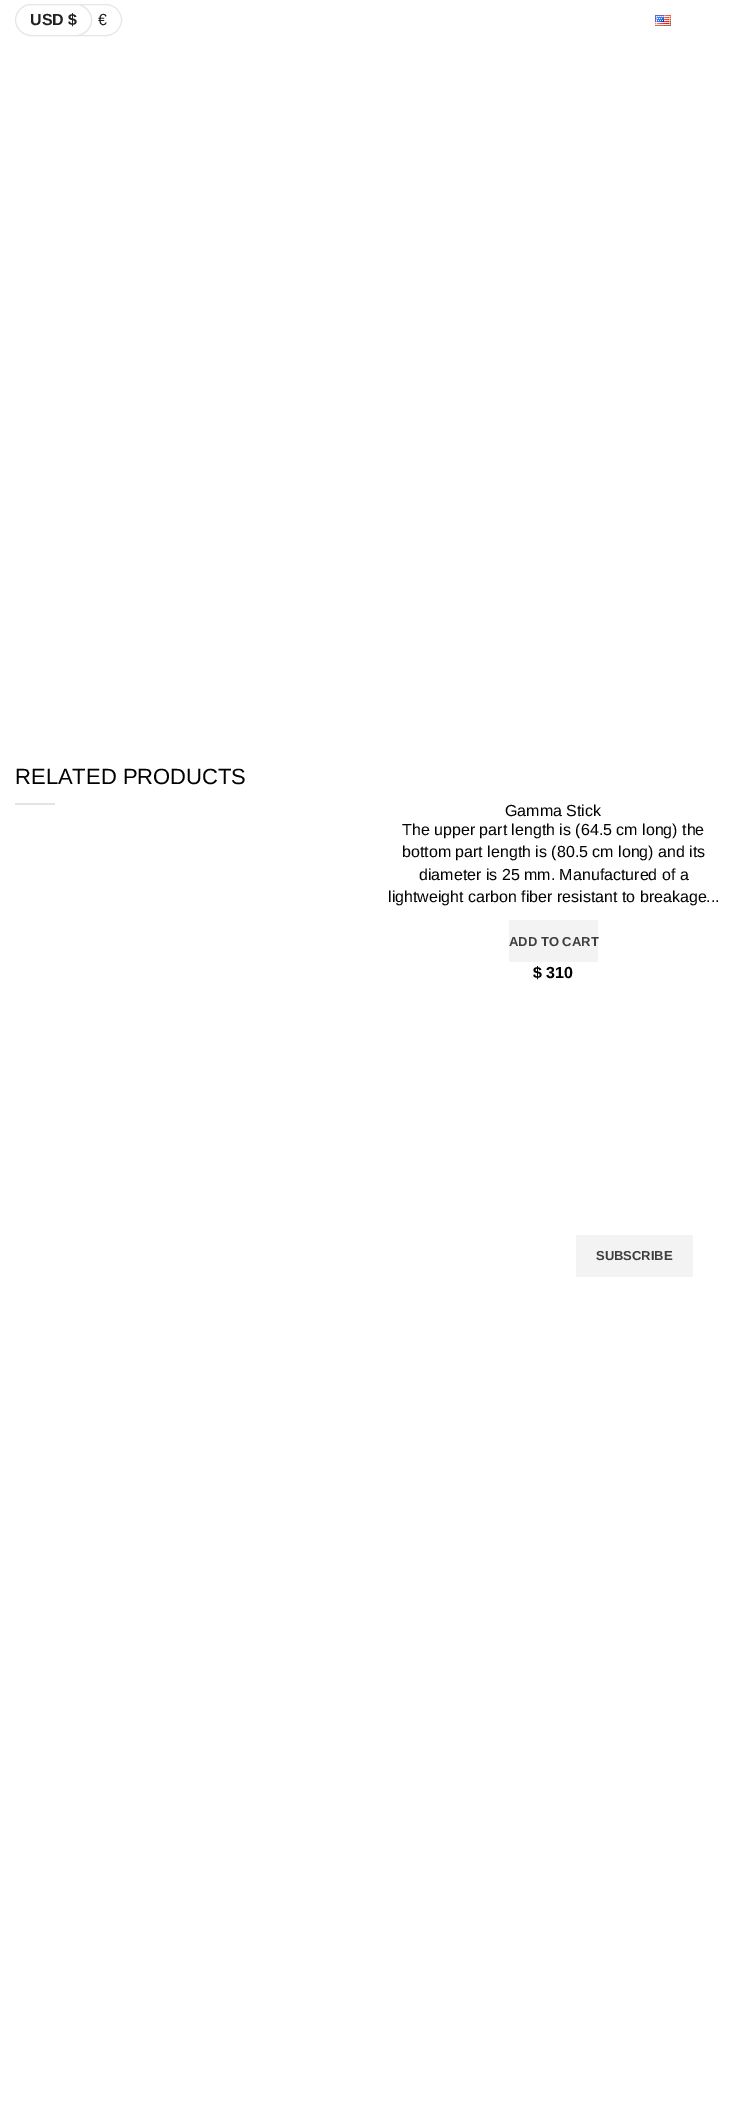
%!PS-Adobe-3.0
%%BoundingBox: 0 0 738 2122
%%LanguageLevel: 3
%%Pages: 1
%%EndComments
%%BeginProlog
/setalpha { dup .setfillconstantalpha .setstrokeconstantalpha } def
/rrect { 5 dict begin { /r /h /w /y /x } { exch def } forall
  x r add y moveto x w add y 2 copy h add r arct x w add y h add x 1 index r arct
  x y h add x y r arct x y 2 copy exch w add exch r arct closepath end } def
/drawimage { 5 dict begin { /h /w /y /x /name } { exch def } forall
  gsave x y translate w h scale
  w h 8 [w 0 0 h 0 0] name (r) file false 3 colorimage grestore end } def
%%EndProlog
%%BeginSetup
<< /PageSize [738 2122] /PageUsesTransparency true >> setpagedevice
%%EndSetup
%%Page: 1 1
0 .pushpdf14devicefilter
0 2122 translate 1 -1 scale
4 setmiterlimit
1 setgray
0 0 738 2122 rectfill
0.902 setgray
62.5 4.5 59 31 15.5 rrect stroke
1 setgray
15 4 77 32 16 rrect fill
0.1 setalpha
0 setgray
15.5 4.5 76 31 15.5 rrect stroke
1 setalpha
(images/1.raw) 655 15 16 11 drawimage
0.894 setgray
15 803 40 2 rectfill
0.953 setgray
509 920 89 42 rectfill
576 1235 117 42 rectfill
/LiberationSans-Bold [16 0 0 -16 0 0] selectfont
0.129 setgray
30 25 moveto (USD $) show
/LiberationSans-Regular [16 0 0 -16 0 0] selectfont
98 25 moveto (€) show
/LiberationSans-Regular [22 0 0 -22 0 0] selectfont
0 setgray
15 784 moveto (RELATED PRODUCTS) show
/LiberationSans-Regular [16 0 0 -16 0 0] selectfont
505 816 moveto (Gamma Stick) show
402 835 moveto (The upper part length is \(64.5 cm long\) the) show
402 857 moveto (bottom part length is \(80.5 cm long\) and its) show
419 880 moveto (diameter is 25 mm. Manufactured of a) show
388 902 moveto (lightweight carbon fiber resistant to breakage...) show
/LiberationSans-Bold [13 0 0 -13 0 0] selectfont
0.243 setgray
509 946 moveto (ADD TO CART) show
/LiberationSans-Bold [16 0 0 -16 0 0] selectfont
0 setgray
533 978 moveto ($ 310) show
/LiberationSans-Bold [13 0 0 -13 0 0] selectfont
0.243 setgray
596 1260 moveto (SUBSCRIBE) show
.poppdf14devicefilter showpage
%%EOF
